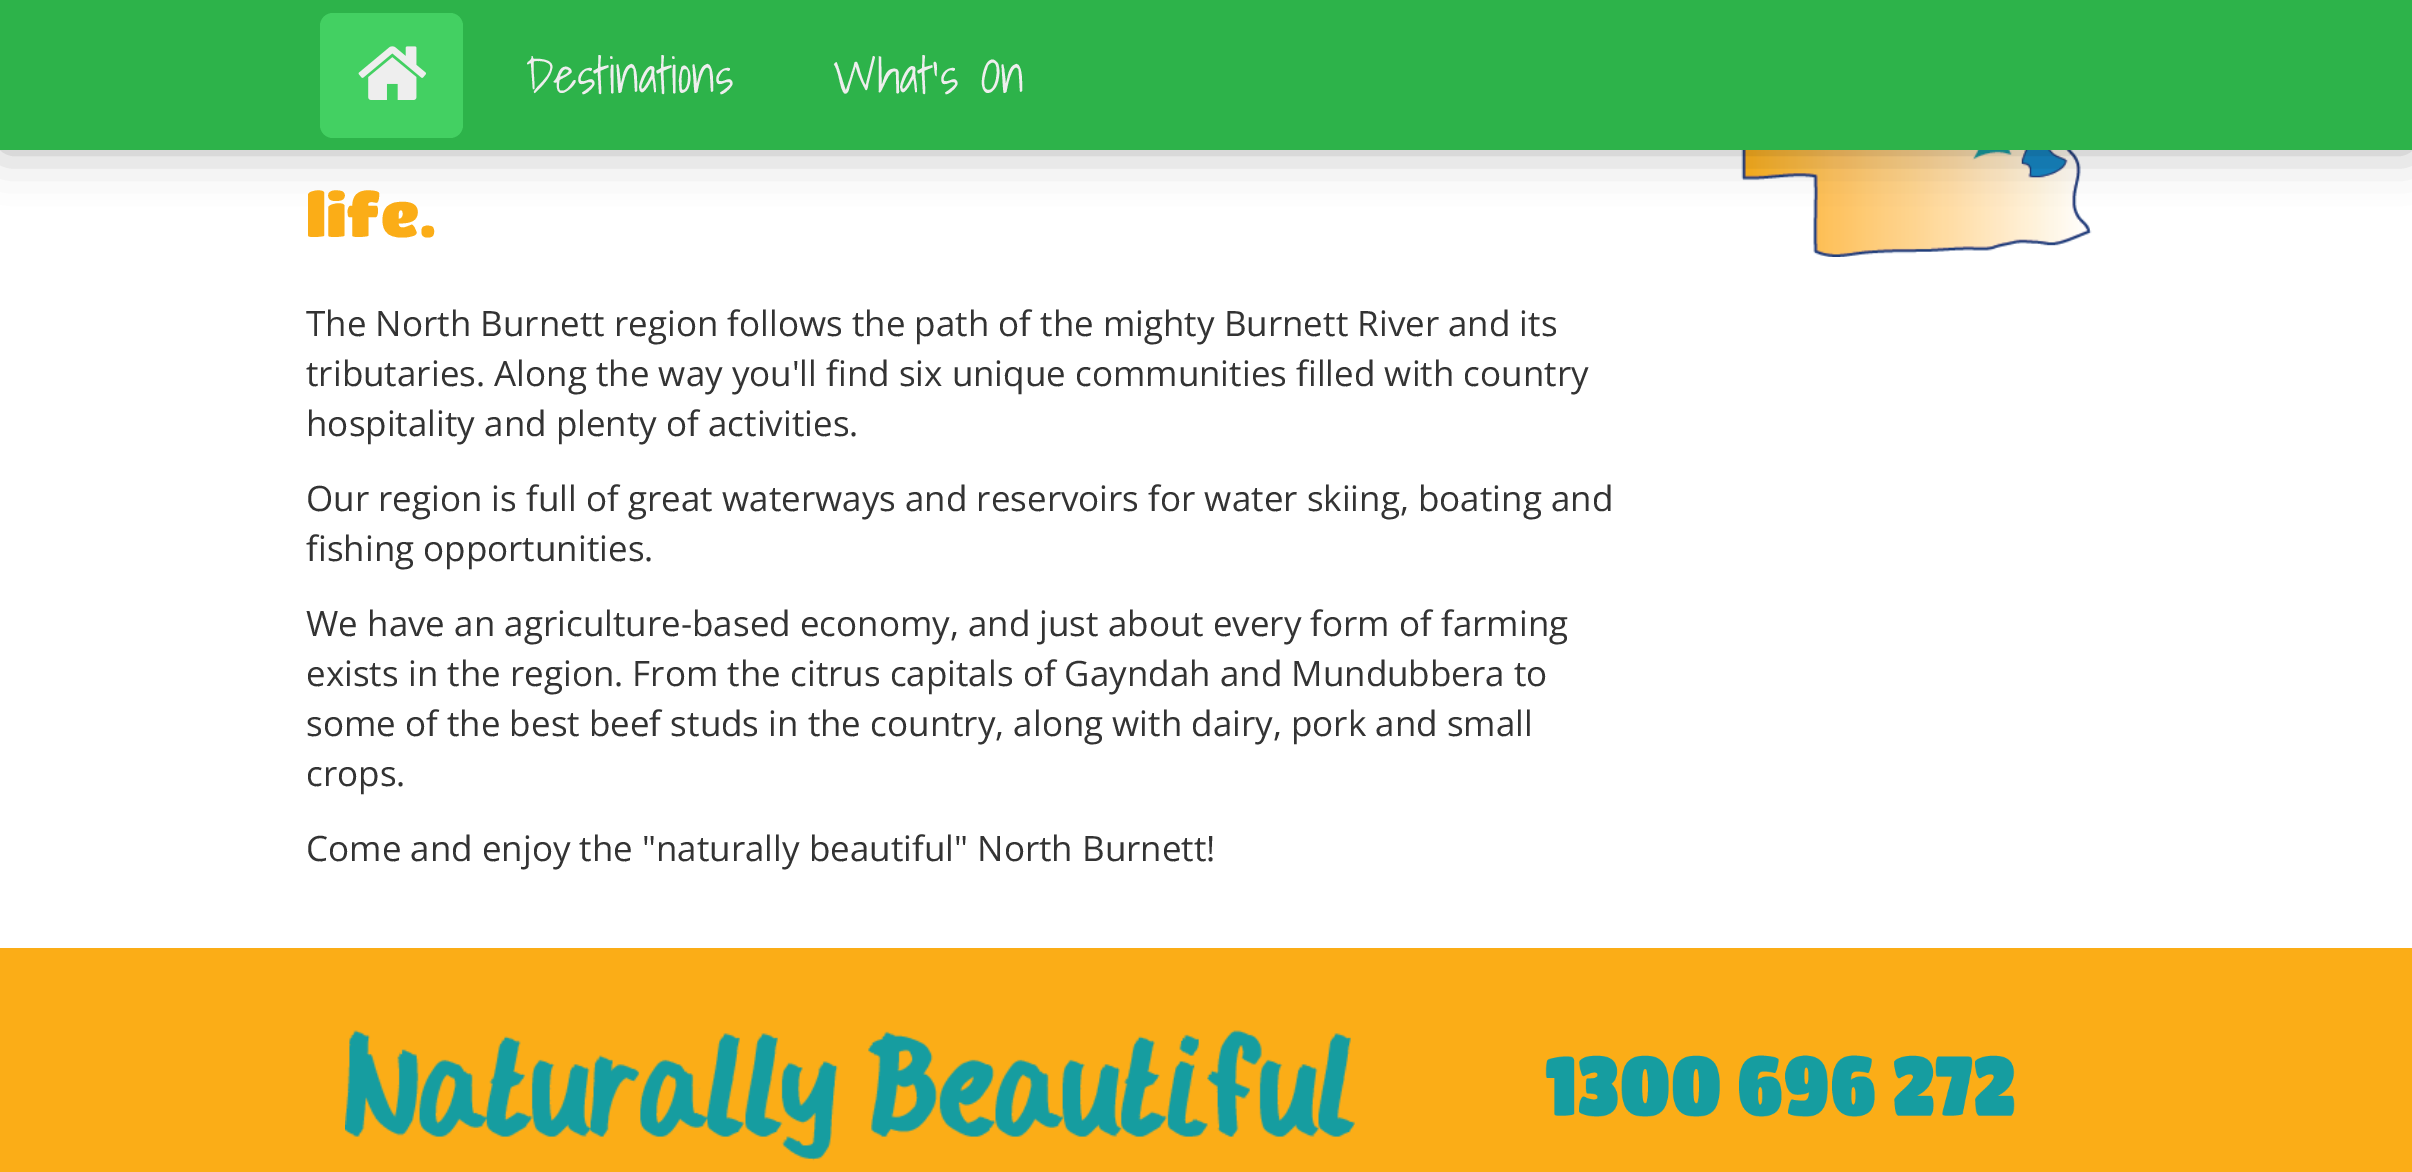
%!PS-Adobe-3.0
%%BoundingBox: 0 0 2412 1172
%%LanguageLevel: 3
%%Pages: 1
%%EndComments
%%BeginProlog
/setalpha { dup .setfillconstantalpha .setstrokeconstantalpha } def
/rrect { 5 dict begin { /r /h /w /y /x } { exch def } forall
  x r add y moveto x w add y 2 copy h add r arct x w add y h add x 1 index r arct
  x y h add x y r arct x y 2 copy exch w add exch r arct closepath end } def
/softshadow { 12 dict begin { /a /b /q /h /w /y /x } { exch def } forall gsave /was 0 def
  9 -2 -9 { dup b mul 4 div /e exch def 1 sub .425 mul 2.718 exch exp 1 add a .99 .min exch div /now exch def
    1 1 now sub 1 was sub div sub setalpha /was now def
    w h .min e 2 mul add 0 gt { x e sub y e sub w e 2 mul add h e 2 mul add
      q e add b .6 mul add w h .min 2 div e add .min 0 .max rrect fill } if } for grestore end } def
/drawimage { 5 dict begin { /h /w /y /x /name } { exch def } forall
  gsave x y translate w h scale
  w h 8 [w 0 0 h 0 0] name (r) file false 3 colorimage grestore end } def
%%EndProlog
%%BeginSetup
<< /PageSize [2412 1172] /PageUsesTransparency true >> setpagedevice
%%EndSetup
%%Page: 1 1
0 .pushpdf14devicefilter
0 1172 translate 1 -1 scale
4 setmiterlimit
1 setgray
0 0 2412 1172 rectfill
(images/2.raw) 1741 150 351 107 drawimage
0 setgray
0 0 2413 150 0 25 0.3 softshadow
0.176 0.702 0.29 setrgbcolor
0 0 2412 150 rectfill
0.263 0.816 0.384 setrgbcolor
320 13 143 125 13 rrect fill
(images/1.raw) 358 46 68 54 drawimage
0.984 0.678 0.09 setrgbcolor
0 948 2412 224 rectfill
(images/3.raw) 345 1030 1010 131 drawimage
(images/4.raw) 1545 1055 470 62 drawimage
/ShadowsIntoLight-Light [50 0 0 -50 0 0] selectfont
0.933 setgray
526 93 moveto (Destinations) show
833 93 moveto (What's On) show
/TitanOne-Regular [60 0 0 -60 0 0] selectfont
0.984 0.678 0.09 setrgbcolor
306 237 moveto (life.) show
/OpenSans-Regular [35 0 0 -35 0 0] selectfont
0.2 setgray
306 336 moveto (The North Burnett region follows the path of the mighty Burnett River and its) show
306 386 moveto (tributaries. Along the way you'll find six unique communities filled with country) show
306 436 moveto (hospitality and plenty of activities.) show
306 511 moveto (Our region is full of great waterways and reservoirs for water skiing, boating and) show
306 561 moveto (fishing opportunities.) show
306 636 moveto (We have an agriculture-based economy, and just about every form of farming) show
306 686 moveto (exists in the region. From the citrus capitals of Gayndah and Mundubbera to) show
306 736 moveto (some of the best beef studs in the country, along with dairy, pork and small) show
306 786 moveto (crops.) show
306 861 moveto (Come and enjoy the "naturally beautiful" North Burnett!) show
.poppdf14devicefilter showpage
%%EOF
